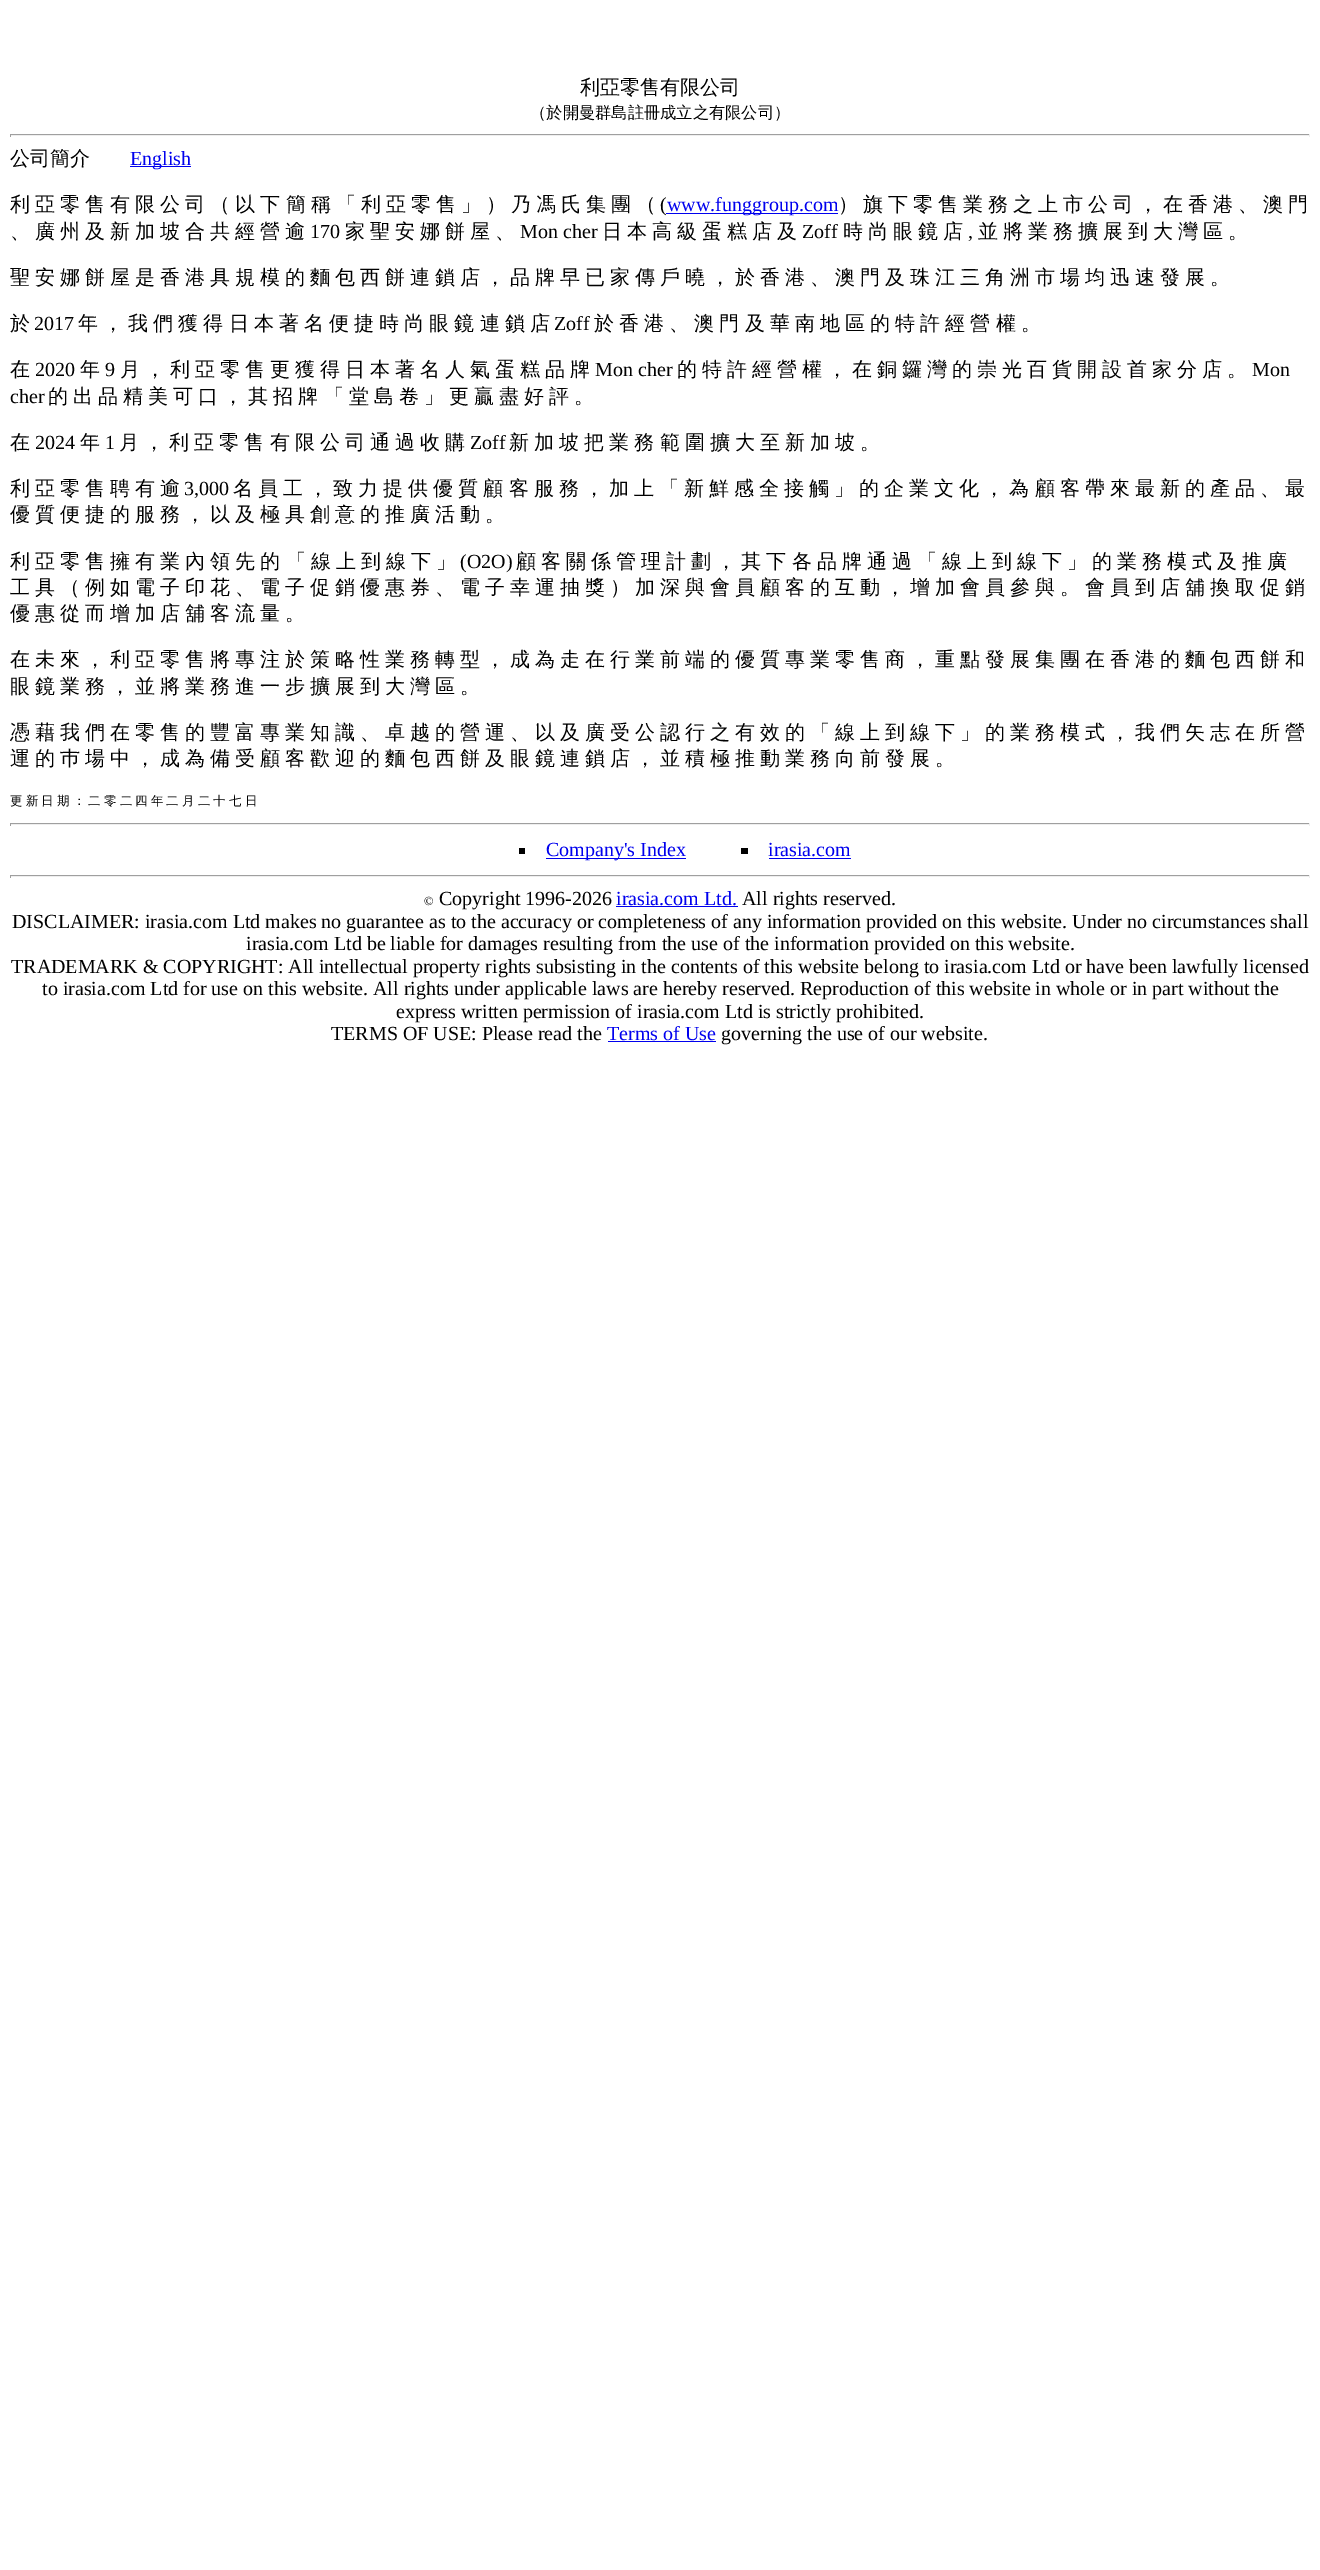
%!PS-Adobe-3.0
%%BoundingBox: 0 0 1320 2570
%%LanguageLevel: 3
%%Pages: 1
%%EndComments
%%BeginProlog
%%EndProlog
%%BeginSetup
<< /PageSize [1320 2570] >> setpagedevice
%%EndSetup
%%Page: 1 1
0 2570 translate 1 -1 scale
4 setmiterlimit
1 setgray
0 0 1320 2570 rectfill
0.624 setgray
10 134 1300 1 rectfill
0.933 setgray
1309 134 1 3 rectfill
10 135 1300 1 rectfill
0.624 setgray
10 134 1 3 rectfill
0 0 0.933 setrgbcolor
130 166 61 1 rectfill
0.624 setgray
10 823 1300 1 rectfill
0.933 setgray
1309 823 1 3 rectfill
10 824 1300 1 rectfill
0.624 setgray
10 823 1 3 rectfill
0 setgray
519 848 6 6 rectfill
0 0 0.933 setrgbcolor
546 858 140 1 rectfill
0 setgray
741 848 7 6 rectfill
0 0 0.933 setrgbcolor
769 858 82 1 rectfill
0.624 setgray
10 875 1300 1 rectfill
0.933 setgray
1309 875 1 3 rectfill
10 876 1300 1 rectfill
0.624 setgray
10 875 1 3 rectfill
0 0 0.933 setrgbcolor
616 906 122 1 rectfill
608 1041 108 1 rectfill
/WenQuanYiZenHei-Medium [20 0 0 -20 0 0] selectfont
0 setgray
580 94 moveto (利亞零售有限公司) show
/WenQuanYiZenHei-Medium [16.25 0 0 -16.25 0 0] selectfont
530 118 moveto (（於開曼群島註冊成立之有限公司）) show
/WenQuanYiZenHei-Medium [20 0 0 -20 0 0] selectfont
10 165 moveto (公司簡介) show
/LiberationSerif-Regular [20 0 0 -20 0 0] selectfont
0 0 0.933 setrgbcolor
130 165 moveto (English) show
/WenQuanYiZenHei-Medium [20 0 0 -20 0 0] selectfont
0 setgray
10 211 moveto -0.95 0 32 (利 亞 零 售 有 限 公 司 （ 以 下 簡 稱 「 利 亞 零 售 」 ） 乃 馮 氏 集 團 （) widthshow
/LiberationSerif-Regular [20 0 0 -20 0 0] selectfont
660 211 moveto (\() show
0 0 0.933 setrgbcolor
666 213 172 1 rectfill
667 211 moveto (www.funggroup.com) show
/WenQuanYiZenHei-Medium [20 0 0 -20 0 0] selectfont
0 setgray
838 211 moveto -1 0 32 (） 旗 下 零 售 業 務 之 上 市 公 司 ， 在 香 港 、 澳 門) widthshow
10 238 moveto (、) show
35 238 moveto (廣) show
60 238 moveto (州) show
85 238 moveto (及) show
110 238 moveto (新) show
135 238 moveto (加) show
160 238 moveto (坡) show
185 238 moveto (合) show
210 238 moveto (共) show
235 238 moveto (經) show
260 238 moveto (營) show
285 238 moveto (逾) show
/LiberationSerif-Regular [20 0 0 -20 0 0] selectfont
310 238 moveto (170) show
/WenQuanYiZenHei-Medium [20 0 0 -20 0 0] selectfont
345 238 moveto (家) show
370 238 moveto (聖) show
395 238 moveto (安) show
420 238 moveto (娜) show
445 238 moveto (餅) show
470 238 moveto (屋) show
495 238 moveto (、) show
/LiberationSerif-Regular [20 0 0 -20 0 0] selectfont
520 238 moveto (Mon cher) show
/WenQuanYiZenHei-Medium [20 0 0 -20 0 0] selectfont
602 238 moveto (日) show
627 238 moveto (本) show
652 238 moveto (高) show
677 238 moveto (級) show
702 238 moveto (蛋) show
727 238 moveto (糕) show
752 238 moveto (店) show
777 238 moveto (及) show
/LiberationSerif-Regular [20 0 0 -20 0 0] selectfont
802 238 moveto (Zoff) show
/WenQuanYiZenHei-Medium [20 0 0 -20 0 0] selectfont
843 238 moveto (時) show
868 238 moveto (尚) show
893 238 moveto (眼) show
918 238 moveto (鏡) show
943 238 moveto (店) show
/LiberationSerif-Regular [20 0 0 -20 0 0] selectfont
968 238 moveto (,) show
/WenQuanYiZenHei-Medium [20 0 0 -20 0 0] selectfont
978 238 moveto (並) show
1003 238 moveto (將) show
1028 238 moveto (業) show
1053 238 moveto (務) show
1078 238 moveto (擴) show
1103 238 moveto (展) show
1128 238 moveto (到) show
1153 238 moveto (大) show
1178 238 moveto (灣) show
1203 238 moveto (區) show
1228 238 moveto (。) show
10 284 moveto -1 0 32 (聖 安 娜 餅 屋 是 香 港 具 規 模 的 麵 包 西 餅 連 鎖 店 ， 品 牌 早 已 家 傳 戶 曉 ， 於 香 港 、 澳 門 及 珠 江 三 角 洲 市 場 均 迅 速 發 展 。) widthshow
10 330 moveto (於) show
/LiberationSerif-Regular [20 0 0 -20 0 0] selectfont
34 330 moveto (2017) show
/WenQuanYiZenHei-Medium [20 0 0 -20 0 0] selectfont
78 330 moveto -0.9 0 32 (年 ， 我 們 獲 得 日 本 著 名 便 捷 時 尚 眼 鏡 連 鎖 店) widthshow
/LiberationSerif-Regular [20 0 0 -20 0 0] selectfont
554 330 moveto (Zoff) show
/WenQuanYiZenHei-Medium [20 0 0 -20 0 0] selectfont
594 330 moveto -0.9 0 32 (於 香 港 、 澳 門 及 華 南 地 區 的 特 許 經 營 權 。) widthshow
10 376 moveto (在) show
/LiberationSerif-Regular [20 0 0 -20 0 0] selectfont
35 376 moveto (2020) show
/WenQuanYiZenHei-Medium [20 0 0 -20 0 0] selectfont
80 376 moveto (年) show
/LiberationSerif-Regular [20 0 0 -20 0 0] selectfont
105 376 moveto (9) show
/WenQuanYiZenHei-Medium [20 0 0 -20 0 0] selectfont
120 376 moveto (月) show
145 376 moveto (，) show
170 376 moveto (利) show
195 376 moveto (亞) show
220 376 moveto (零) show
245 376 moveto (售) show
270 376 moveto (更) show
295 376 moveto (獲) show
320 376 moveto (得) show
345 376 moveto (日) show
370 376 moveto (本) show
395 376 moveto (著) show
420 376 moveto (名) show
445 376 moveto (人) show
470 376 moveto (氣) show
495 376 moveto (蛋) show
520 376 moveto (糕) show
545 376 moveto (品) show
570 376 moveto (牌) show
/LiberationSerif-Regular [20 0 0 -20 0 0] selectfont
595 376 moveto (Mon cher) show
/WenQuanYiZenHei-Medium [20 0 0 -20 0 0] selectfont
677 376 moveto (的) show
702 376 moveto (特) show
727 376 moveto (許) show
752 376 moveto (經) show
777 376 moveto (營) show
802 376 moveto (權) show
827 376 moveto (，) show
852 376 moveto (在) show
877 376 moveto (銅) show
902 376 moveto (鑼) show
927 376 moveto (灣) show
952 376 moveto (的) show
977 376 moveto (崇) show
1002 376 moveto (光) show
1027 376 moveto (百) show
1052 376 moveto (貨) show
1077 376 moveto (開) show
1102 376 moveto (設) show
1127 376 moveto (首) show
1152 376 moveto (家) show
1177 376 moveto (分) show
1202 376 moveto (店) show
1227 376 moveto (。) show
/LiberationSerif-Regular [20 0 0 -20 0 0] selectfont
1252 376 moveto (Mon) show
10 403 moveto (cher) show
/WenQuanYiZenHei-Medium [20 0 0 -20 0 0] selectfont
48 403 moveto -0.95 0 32 (的 出 品 精 美 可 口 ， 其 招 牌 「 堂 島 卷 」 更 贏 盡 好 評 。) widthshow
10 449 moveto (在) show
/LiberationSerif-Regular [20 0 0 -20 0 0] selectfont
35 449 moveto (2024) show
/WenQuanYiZenHei-Medium [20 0 0 -20 0 0] selectfont
80 449 moveto (年) show
/LiberationSerif-Regular [20 0 0 -20 0 0] selectfont
105 449 moveto (1) show
/WenQuanYiZenHei-Medium [20 0 0 -20 0 0] selectfont
119 449 moveto -0.9 0 32 (月 ， 利 亞 零 售 有 限 公 司 通 過 收 購) widthshow
/LiberationSerif-Regular [20 0 0 -20 0 0] selectfont
470 449 moveto (Zoff) show
/WenQuanYiZenHei-Medium [20 0 0 -20 0 0] selectfont
509 449 moveto -0.9 0 32 (新 加 坡 把 業 務 範 圍 擴 大 至 新 加 坡 。) widthshow
10 495 moveto -0.95 0 32 (利 亞 零 售 聘 有 逾) widthshow
/LiberationSerif-Regular [20 0 0 -20 0 0] selectfont
184 495 moveto (3,000) show
/WenQuanYiZenHei-Medium [20 0 0 -20 0 0] selectfont
233 495 moveto -0.95 0 32 (名 員 工 ， 致 力 提 供 優 質 顧 客 服 務 ， 加 上 「 新 鮮 感 全 接 觸 」 的 企 業 文 化 ， 為 顧 客 帶 來 最 新 的 產 品 、 最) widthshow
10 521 moveto -1 0 32 (優 質 便 捷 的 服 務 ， 以 及 極 具 創 意 的 推 廣 活 動 。) widthshow
10 568 moveto -0.95 0 32 (利 亞 零 售 擁 有 業 內 領 先 的 「 線 上 到 線 下 」) widthshow
/LiberationSerif-Regular [20 0 0 -20 0 0] selectfont
460 568 moveto (\(O2O\)) show
/WenQuanYiZenHei-Medium [20 0 0 -20 0 0] selectfont
516 568 moveto -0.95 0 32 (顧 客 關 係 管 理 計 劃 ， 其 下 各 品 牌 通 過 「 線 上 到 線 下 」 的 業 務 模 式 及 推 廣) widthshow
10 594 moveto -1 0 32 (工 具 （ 例 如 電 子 印 花 、 電 子 促 銷 優 惠 券 、 電 子 幸 運 抽 獎 ） 加 深 與 會 員 顧 客 的 互 動 ， 增 加 會 員 參 與 。 會 員 到 店 舖 換 取 促 銷) widthshow
10 620 moveto -1 0 32 (優 惠 從 而 增 加 店 舖 客 流 量 。) widthshow
10 666 moveto -1 0 32 (在 未 來 ， 利 亞 零 售 將 專 注 於 策 略 性 業 務 轉 型 ， 成 為 走 在 行 業 前 端 的 優 質 專 業 零 售 商 ， 重 點 發 展 集 團 在 香 港 的 麵 包 西 餅 和) widthshow
10 693 moveto -1 0 32 (眼 鏡 業 務 ， 並 將 業 務 進 一 步 擴 展 到 大 灣 區 。) widthshow
10 739 moveto -1 0 32 (憑 藉 我 們 在 零 售 的 豐 富 專 業 知 識 、 卓 越 的 營 運 、 以 及 廣 受 公 認 行 之 有 效 的 「 線 上 到 線 下 」 的 業 務 模 式 ， 我 們 矢 志 在 所 營) widthshow
10 765 moveto -1 0 32 (運 的 巿 場 中 ， 成 為 備 受 顧 客 歡 迎 的 麵 包 西 餅 及 眼 鏡 連 鎖 店 ， 並 積 極 推 動 業 務 向 前 發 展 。) widthshow
/WenQuanYiZenHei-Medium [12.5 0 0 -12.5 0 0] selectfont
10 805 moveto -0.6 0 32 (更 新 日 期 ： 二 零 二 四 年 二 月 二 十 七 日) widthshow
/LiberationSerif-Regular [20 0 0 -20 0 0] selectfont
0 0 0.933 setrgbcolor
546 856 moveto (Company's Index) show
768 856 moveto (irasia.com) show
/LiberationSerif-Regular [12.5 0 0 -12.5 0 0] selectfont
0 setgray
424 905 moveto (©) show
/LiberationSerif-Regular [20 0 0 -20 0 0] selectfont
439 905 moveto (Copyright 1996-2026) show
0 0 0.933 setrgbcolor
616 905 moveto (irasia.com Ltd.) show
0 setgray
742 905 moveto (All rights reserved.) show
12 928 moveto (DISCLAIMER: irasia.com Ltd makes no guarantee as to the accuracy or completeness of any information provided on this website. Under no circumstances shall) show
246 950 moveto (irasia.com Ltd be liable for damages resulting from the use of the information provided on this website.) show
11 973 moveto (TRADEMARK & COPYRIGHT: All intellectual property rights subsisting in the contents of this website belong to irasia.com Ltd or have been lawfully licensed) show
42 995 moveto (to irasia.com Ltd for use on this website. All rights under applicable laws are hereby reserved. Reproduction of this website in whole or in part without the) show
396 1018 moveto (express written permission of irasia.com Ltd is strictly prohibited.) show
331 1040 moveto (TERMS OF USE: Please read the) show
0 0 0.933 setrgbcolor
607 1040 moveto (Terms of Use) show
0 setgray
721 1040 moveto (governing the use of our website.) show
showpage
%%EOF
